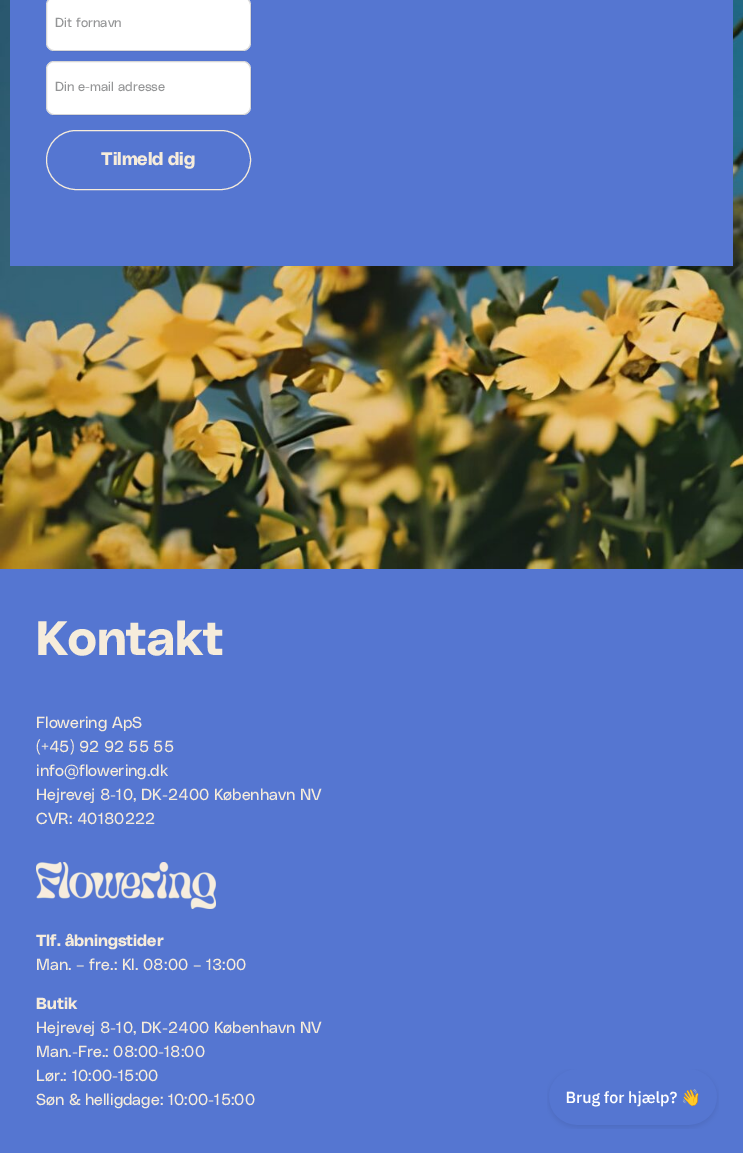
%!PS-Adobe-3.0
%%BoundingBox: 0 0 743 1153
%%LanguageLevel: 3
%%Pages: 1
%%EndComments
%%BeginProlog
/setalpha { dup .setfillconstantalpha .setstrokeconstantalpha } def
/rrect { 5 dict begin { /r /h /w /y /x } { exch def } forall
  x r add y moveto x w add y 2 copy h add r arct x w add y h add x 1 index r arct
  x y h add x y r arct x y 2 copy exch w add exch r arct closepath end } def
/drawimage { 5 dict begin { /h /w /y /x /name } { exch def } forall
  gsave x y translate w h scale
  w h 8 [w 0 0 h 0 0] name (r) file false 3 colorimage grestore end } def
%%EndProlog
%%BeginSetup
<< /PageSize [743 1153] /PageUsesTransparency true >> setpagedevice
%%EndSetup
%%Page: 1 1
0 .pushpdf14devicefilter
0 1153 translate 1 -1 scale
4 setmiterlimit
1 setgray
0 0 743 1153 rectfill
(images/1.raw) 0 0 743 569 drawimage
0.333 0.463 0.82 setrgbcolor
10 0 723 266 rectfill
1 setgray
46 -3 205 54 8 rrect fill
0.16 setalpha
0 setgray
46.5 -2.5 204 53 7.5 rrect stroke
1 setalpha
1 setgray
46 61 205 54 8 rrect fill
0.16 setalpha
0 setgray
46.5 61.5 204 53 7.5 rrect stroke
1 setalpha
0.965 0.925 0.859 setrgbcolor
46.5 130.5 204 59 29.5 rrect stroke
0.333 0.463 0.82 setrgbcolor
0 569 743 584 rectfill
(images/2.raw) 36 862 180 47 drawimage
(images/3.raw) 547 1069 172 60 drawimage
/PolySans-Regular [13 0 0 -13 0 0] selectfont
0.58 0.584 0.588 setrgbcolor
55 27 moveto (Dit fornavn) show
55 91 moveto (Din e-mail adresse) show
/PolySans-Bold [18 0 0 -18 0 0] selectfont
0.965 0.925 0.859 setrgbcolor
101 165 moveto (Tilmeld dig) show
/PolySans-Bold [48 0 0 -48 0 0] selectfont
36 655 moveto (Kontakt) show
/PolySans-Regular [16 0 0 -16 0 0] selectfont
36 728 moveto (Flowering ApS) show
36 752 moveto (\(+45\) 92 92 55 55) show
36 776 moveto (info@flowering.dk) show
36 800 moveto (Hejrevej 8-10, DK-2400 København NV) show
36 824 moveto (CVR: 40180222) show
/PolySans-Bold [16 0 0 -16 0 0] selectfont
36 946 moveto (Tlf. åbningstider) show
/PolySans-Regular [16 0 0 -16 0 0] selectfont
36 970 moveto (Man. – fre.: Kl. 08:00 – 13:00) show
/PolySans-Bold [16 0 0 -16 0 0] selectfont
36 1009 moveto (Butik) show
/PolySans-Regular [16 0 0 -16 0 0] selectfont
36 1033 moveto (Hejrevej 8-10, DK-2400 København NV) show
36 1057 moveto (Man.-Fre.: 08:00-18:00) show
36 1081 moveto (Lør.: 10:00-15:00) show
36 1105 moveto (Søn & helligdage: 10:00-15:00) show
.poppdf14devicefilter showpage
%%EOF
